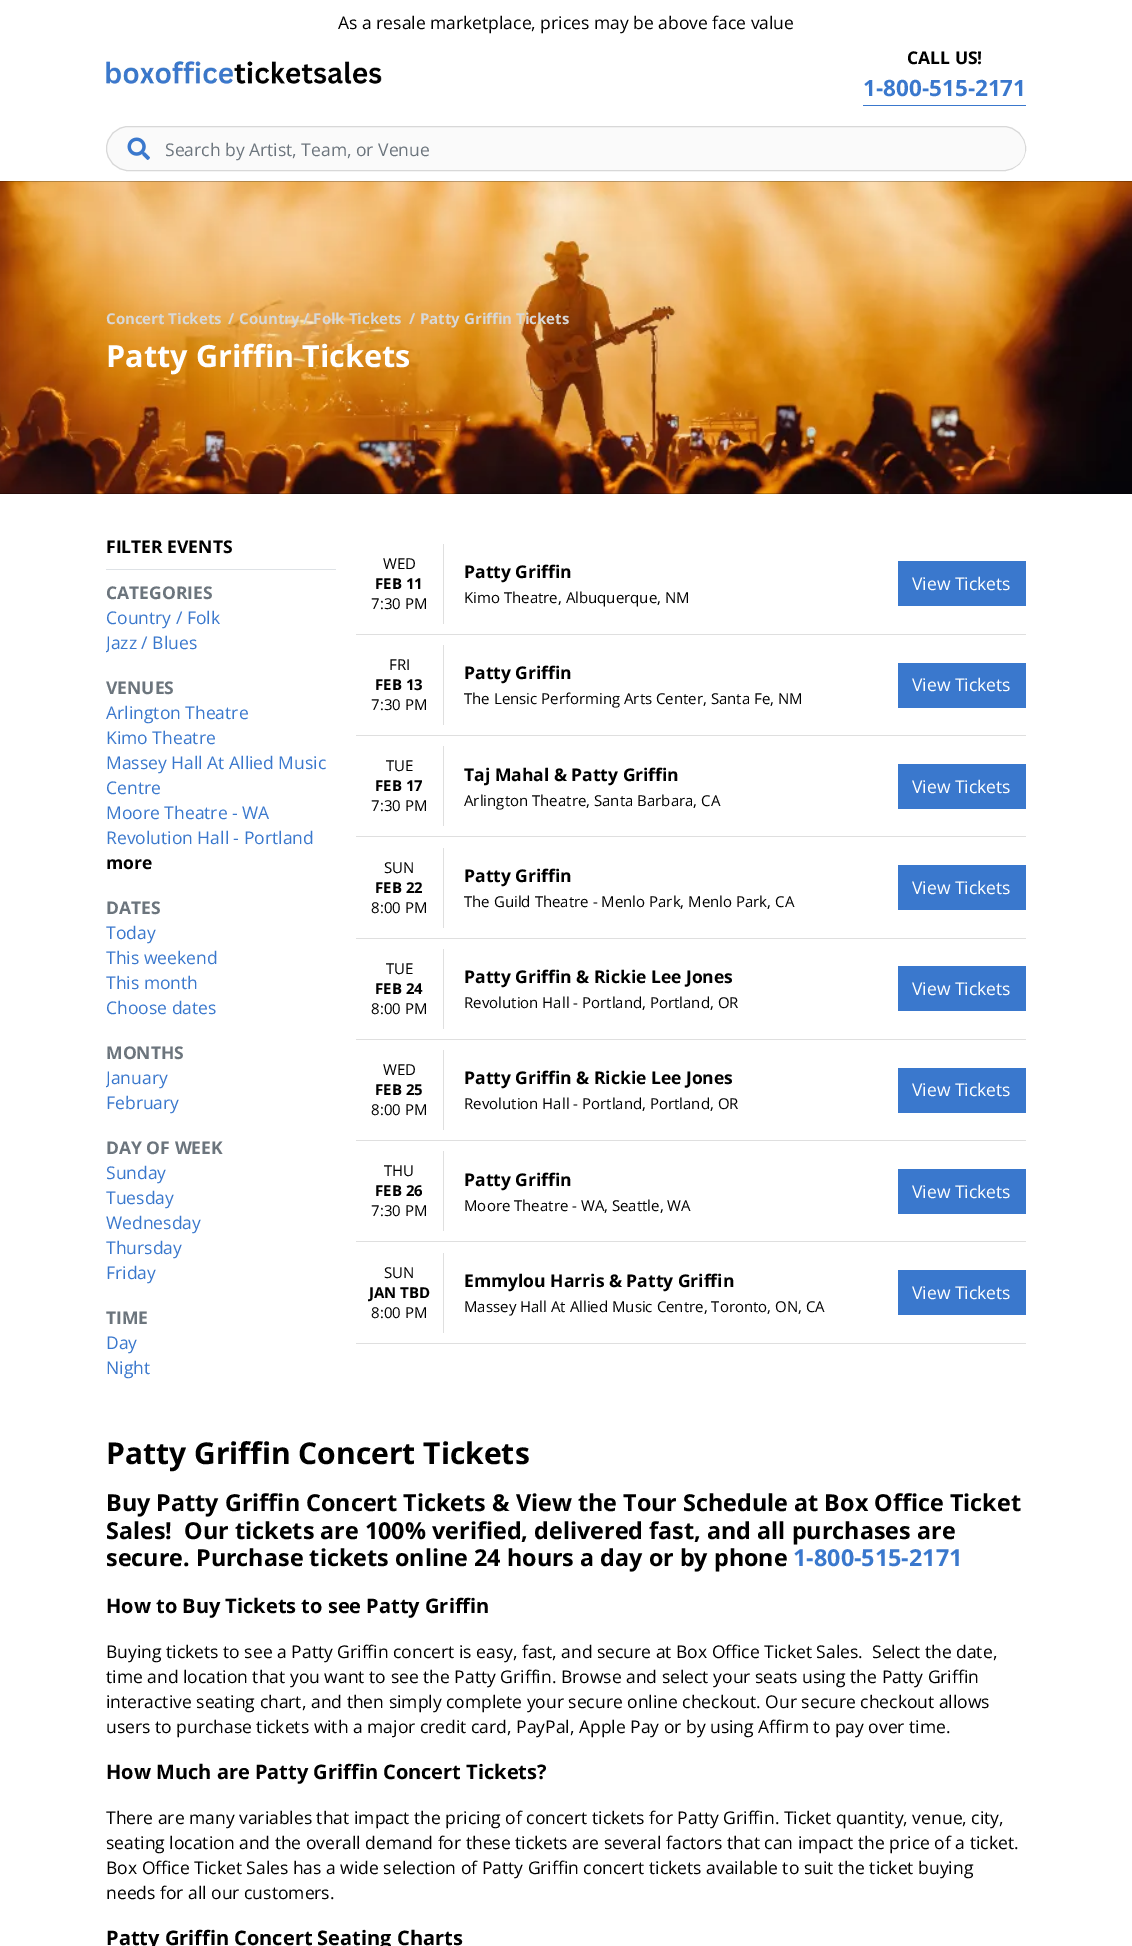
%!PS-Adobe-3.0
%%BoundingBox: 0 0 1132 1946
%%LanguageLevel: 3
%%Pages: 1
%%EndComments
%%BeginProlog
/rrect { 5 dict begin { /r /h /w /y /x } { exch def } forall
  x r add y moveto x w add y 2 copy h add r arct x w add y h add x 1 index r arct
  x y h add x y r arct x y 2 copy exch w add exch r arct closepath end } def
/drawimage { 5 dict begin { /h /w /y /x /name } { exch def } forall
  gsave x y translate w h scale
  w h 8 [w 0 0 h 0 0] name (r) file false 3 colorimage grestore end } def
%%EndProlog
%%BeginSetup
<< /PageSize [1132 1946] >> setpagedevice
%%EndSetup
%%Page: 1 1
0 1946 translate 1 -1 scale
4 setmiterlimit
1 setgray
0 0 1132 1946 rectfill
(images/1.raw) 106 61 276 23 drawimage
0.227 0.471 0.804 setrgbcolor
863 105 163 1 rectfill
0.98 setgray
106.5 126.5 919 44 22 rrect gsave fill grestore
0.847 setgray
stroke
(images/2.raw) 127 137 23 23 drawimage
0.98 setgray
150 129 875 40 20 rrect fill
(images/3.raw) 0 181 1132 313 drawimage
0.871 0.886 0.902 setrgbcolor
106 569 230 1 rectfill
0.875 setgray
356 634 670 1 rectfill
443 544 1 80 rectfill
0.227 0.471 0.804 setrgbcolor
898 561 128 45 rectfill
0.875 setgray
356 735 670 1 rectfill
443 645 1 80 rectfill
0.227 0.471 0.804 setrgbcolor
898 663 128 45 rectfill
0.875 setgray
356 836 670 1 rectfill
443 746 1 80 rectfill
0.227 0.471 0.804 setrgbcolor
898 764 128 45 rectfill
0.875 setgray
356 938 670 1 rectfill
443 848 1 80 rectfill
0.227 0.471 0.804 setrgbcolor
898 865 128 45 rectfill
0.875 setgray
356 1039 670 1 rectfill
443 949 1 80 rectfill
0.227 0.471 0.804 setrgbcolor
898 966 128 45 rectfill
0.875 setgray
356 1140 670 1 rectfill
443 1050 1 80 rectfill
0.227 0.471 0.804 setrgbcolor
898 1068 128 45 rectfill
0.875 setgray
356 1241 670 1 rectfill
443 1151 1 80 rectfill
0.227 0.471 0.804 setrgbcolor
898 1169 128 45 rectfill
0.875 setgray
356 1343 670 1 rectfill
443 1253 1 80 rectfill
0.227 0.471 0.804 setrgbcolor
898 1270 128 45 rectfill
/OpenSans-Regular [17.5 0 0 -17.5 0 0] selectfont
0 setgray
338 29 moveto (As a resale marketplace, prices may be above face value) show
/OpenSans-Bold [17.5 0 0 -17.5 0 0] selectfont
907 64 moveto (CALL US!) show
/OpenSans-Bold [22.5 0 0 -22.5 0 0] selectfont
0.227 0.471 0.804 setrgbcolor
863 96 moveto (1-800-515-2171) show
/OpenSans-Regular [17.5 0 0 -17.5 0 0] selectfont
0.424 0.459 0.49 setrgbcolor
165 156 moveto (Search by Artist, Team, or Venue) show
/OpenSans-Bold [15 0 0 -15 0 0] selectfont
0.847 setgray
106 324 moveto (Concert Tickets) show
228 324 moveto (/) show
239 324 moveto (Country / Folk Tickets) show
409 324 moveto (/) show
420 324 moveto (Patty Griffin Tickets) show
/OpenSans-Bold [30.6 0 0 -30.6 0 0] selectfont
1 setgray
106 367 moveto (Patty Griffin Tickets) show
/OpenSans-Bold [17.5 0 0 -17.5 0 0] selectfont
0 setgray
106 553 moveto (FILTER EVENTS) show
0.424 0.459 0.49 setrgbcolor
106 599 moveto (CATEGORIES) show
/OpenSans-Regular [17.5 0 0 -17.5 0 0] selectfont
0.227 0.471 0.804 setrgbcolor
106 624 moveto (Country / Folk) show
gsave
106 534 920 846 rectclip
106 649 moveto (Jazz / Blues) show
grestore
/OpenSans-Bold [17.5 0 0 -17.5 0 0] selectfont
0.424 0.459 0.49 setrgbcolor
106 694 moveto (VENUES) show
/OpenSans-Regular [17.5 0 0 -17.5 0 0] selectfont
0.227 0.471 0.804 setrgbcolor
106 719 moveto (Arlington Theatre) show
106 744 moveto (Kimo Theatre) show
106 769 moveto (Massey Hall At Allied Music) show
106 794 moveto (Centre) show
106 819 moveto (Moore Theatre - WA) show
106 844 moveto (Revolution Hall - Portland) show
/OpenSans-Bold [17.5 0 0 -17.5 0 0] selectfont
0 setgray
106 869 moveto (more) show
0.424 0.459 0.49 setrgbcolor
106 914 moveto (DATES) show
/OpenSans-Regular [17.5 0 0 -17.5 0 0] selectfont
0.227 0.471 0.804 setrgbcolor
106 939 moveto (Today) show
106 964 moveto (This weekend) show
106 989 moveto (This month) show
106 1014 moveto (Choose dates) show
/OpenSans-Bold [17.5 0 0 -17.5 0 0] selectfont
0.424 0.459 0.49 setrgbcolor
106 1059 moveto (MONTHS) show
gsave
106 534 920 846 rectclip
/OpenSans-Regular [17.5 0 0 -17.5 0 0] selectfont
0.227 0.471 0.804 setrgbcolor
106 1084 moveto (January) show
grestore
/OpenSans-Regular [17.5 0 0 -17.5 0 0] selectfont
0.227 0.471 0.804 setrgbcolor
106 1109 moveto (February) show
/OpenSans-Bold [17.5 0 0 -17.5 0 0] selectfont
0.424 0.459 0.49 setrgbcolor
106 1154 moveto (DAY OF WEEK) show
/OpenSans-Regular [17.5 0 0 -17.5 0 0] selectfont
0.227 0.471 0.804 setrgbcolor
106 1179 moveto (Sunday) show
106 1204 moveto (Tuesday) show
106 1229 moveto (Wednesday) show
106 1254 moveto (Thursday) show
106 1279 moveto (Friday) show
/OpenSans-Bold [17.5 0 0 -17.5 0 0] selectfont
0.424 0.459 0.49 setrgbcolor
106 1324 moveto (TIME) show
/OpenSans-Regular [17.5 0 0 -17.5 0 0] selectfont
0.227 0.471 0.804 setrgbcolor
106 1349 moveto (Day) show
106 1374 moveto (Night) show
/OpenSans-Regular [15 0 0 -15 0 0] selectfont
0 setgray
383 569 moveto (WED) show
/OpenSans-Bold [15 0 0 -15 0 0] selectfont
375 589 moveto (FEB 11) show
/OpenSans-Regular [15 0 0 -15 0 0] selectfont
371 609 moveto (7:30 PM) show
/OpenSans-Bold [17.5 0 0 -17.5 0 0] selectfont
464 578 moveto (Patty Griffin) show
/OpenSans-Regular [15 0 0 -15 0 0] selectfont
464 603 moveto (Kimo Theatre, Albuquerque, NM) show
/OpenSans-Regular [17.5 0 0 -17.5 0 0] selectfont
1 setgray
912 590 moveto (View Tickets) show
/OpenSans-Regular [15 0 0 -15 0 0] selectfont
0 setgray
389 670 moveto (FRI) show
/OpenSans-Bold [15 0 0 -15 0 0] selectfont
375 690 moveto (FEB 13) show
/OpenSans-Regular [15 0 0 -15 0 0] selectfont
371 710 moveto (7:30 PM) show
/OpenSans-Bold [17.5 0 0 -17.5 0 0] selectfont
464 679 moveto (Patty Griffin) show
/OpenSans-Regular [15 0 0 -15 0 0] selectfont
464 704 moveto (The Lensic Performing Arts Center, Santa Fe, NM) show
/OpenSans-Regular [17.5 0 0 -17.5 0 0] selectfont
1 setgray
912 691 moveto (View Tickets) show
/OpenSans-Regular [15 0 0 -15 0 0] selectfont
0 setgray
386 771 moveto (TUE) show
/OpenSans-Bold [15 0 0 -15 0 0] selectfont
375 791 moveto (FEB 17) show
/OpenSans-Regular [15 0 0 -15 0 0] selectfont
371 811 moveto (7:30 PM) show
/OpenSans-Bold [17.5 0 0 -17.5 0 0] selectfont
464 781 moveto (Taj Mahal & Patty Griffin) show
/OpenSans-Regular [15 0 0 -15 0 0] selectfont
464 806 moveto (Arlington Theatre, Santa Barbara, CA) show
/OpenSans-Regular [17.5 0 0 -17.5 0 0] selectfont
1 setgray
912 793 moveto (View Tickets) show
/OpenSans-Regular [15 0 0 -15 0 0] selectfont
0 setgray
384 873 moveto (SUN) show
/OpenSans-Bold [15 0 0 -15 0 0] selectfont
375 893 moveto (FEB 22) show
/OpenSans-Regular [15 0 0 -15 0 0] selectfont
371 913 moveto (8:00 PM) show
/OpenSans-Bold [17.5 0 0 -17.5 0 0] selectfont
464 882 moveto (Patty Griffin) show
/OpenSans-Regular [15 0 0 -15 0 0] selectfont
464 907 moveto (The Guild Theatre - Menlo Park, Menlo Park, CA) show
/OpenSans-Regular [17.5 0 0 -17.5 0 0] selectfont
1 setgray
912 894 moveto (View Tickets) show
/OpenSans-Regular [15 0 0 -15 0 0] selectfont
0 setgray
386 974 moveto (TUE) show
/OpenSans-Bold [15 0 0 -15 0 0] selectfont
375 994 moveto (FEB 24) show
/OpenSans-Regular [15 0 0 -15 0 0] selectfont
371 1014 moveto (8:00 PM) show
/OpenSans-Bold [17.5 0 0 -17.5 0 0] selectfont
464 983 moveto (Patty Griffin & Rickie Lee Jones) show
/OpenSans-Regular [15 0 0 -15 0 0] selectfont
464 1008 moveto (Revolution Hall - Portland, Portland, OR) show
/OpenSans-Regular [17.5 0 0 -17.5 0 0] selectfont
1 setgray
912 995 moveto (View Tickets) show
/OpenSans-Regular [15 0 0 -15 0 0] selectfont
0 setgray
383 1075 moveto (WED) show
/OpenSans-Bold [15 0 0 -15 0 0] selectfont
375 1095 moveto (FEB 25) show
/OpenSans-Regular [15 0 0 -15 0 0] selectfont
371 1115 moveto (8:00 PM) show
/OpenSans-Bold [17.5 0 0 -17.5 0 0] selectfont
464 1084 moveto (Patty Griffin & Rickie Lee Jones) show
/OpenSans-Regular [15 0 0 -15 0 0] selectfont
464 1109 moveto (Revolution Hall - Portland, Portland, OR) show
/OpenSans-Regular [17.5 0 0 -17.5 0 0] selectfont
1 setgray
912 1096 moveto (View Tickets) show
/OpenSans-Regular [15 0 0 -15 0 0] selectfont
0 setgray
384 1176 moveto (THU) show
/OpenSans-Bold [15 0 0 -15 0 0] selectfont
375 1196 moveto (FEB 26) show
/OpenSans-Regular [15 0 0 -15 0 0] selectfont
371 1216 moveto (7:30 PM) show
/OpenSans-Bold [17.5 0 0 -17.5 0 0] selectfont
464 1186 moveto (Patty Griffin) show
/OpenSans-Regular [15 0 0 -15 0 0] selectfont
464 1211 moveto (Moore Theatre - WA, Seattle, WA) show
/OpenSans-Regular [17.5 0 0 -17.5 0 0] selectfont
1 setgray
912 1198 moveto (View Tickets) show
/OpenSans-Regular [15 0 0 -15 0 0] selectfont
0 setgray
384 1278 moveto (SUN) show
/OpenSans-Bold [15 0 0 -15 0 0] selectfont
369 1298 moveto (JAN TBD) show
/OpenSans-Regular [15 0 0 -15 0 0] selectfont
371 1318 moveto (8:00 PM) show
/OpenSans-Bold [17.5 0 0 -17.5 0 0] selectfont
464 1287 moveto (Emmylou Harris & Patty Griffin) show
/OpenSans-Regular [15 0 0 -15 0 0] selectfont
464 1312 moveto (Massey Hall At Allied Music Centre, Toronto, ON, CA) show
/OpenSans-Regular [17.5 0 0 -17.5 0 0] selectfont
1 setgray
912 1299 moveto (View Tickets) show
/OpenSans-Bold [30 0 0 -30 0 0] selectfont
0 setgray
106 1464 moveto (Patty Griffin Concert Tickets) show
/OpenSans-Bold [23.35 0 0 -23.35 0 0] selectfont
106 1511 moveto (Buy Patty Griffin Concert Tickets & View the Tour Schedule at Box Office Ticket) show
106 1539 moveto (Sales!  Our tickets are 100% verified, delivered fast, and all purchases are) show
106 1566 moveto (secure. Purchase tickets online 24 hours a day or by phone) show
0.227 0.471 0.804 setrgbcolor
793 1566 moveto (1-800-515-2171) show
/OpenSans-Bold [20 0 0 -20 0 0] selectfont
0 setgray
106 1613 moveto (How to Buy Tickets to see Patty Griffin) show
/OpenSans-Regular [17.5 0 0 -17.5 0 0] selectfont
106 1658 moveto (Buying tickets to see a Patty Griffin concert is easy, fast, and secure at Box Office Ticket Sales.  Select the date,) show
106 1683 moveto (time and location that you want to see the Patty Griffin. Browse and select your seats using the Patty Griffin) show
106 1708 moveto (interactive seating chart, and then simply complete your secure online checkout. Our secure checkout allows) show
106 1733 moveto (users to purchase tickets with a major credit card, PayPal, Apple Pay or by using Affirm to pay over time.) show
/OpenSans-Bold [20 0 0 -20 0 0] selectfont
106 1779 moveto (How Much are Patty Griffin Concert Tickets?) show
/OpenSans-Regular [17.5 0 0 -17.5 0 0] selectfont
106 1824 moveto (There are many variables that impact the pricing of concert tickets for Patty Griffin. Ticket quantity, venue, city,) show
106 1849 moveto (seating location and the overall demand for these tickets are several factors that can impact the price of a ticket.) show
106 1874 moveto (Box Office Ticket Sales has a wide selection of Patty Griffin concert tickets available to suit the ticket buying) show
106 1899 moveto (needs for all our customers.) show
/OpenSans-Bold [20 0 0 -20 0 0] selectfont
106 1945 moveto (Patty Griffin Concert Seating Charts) show
showpage
%%EOF
